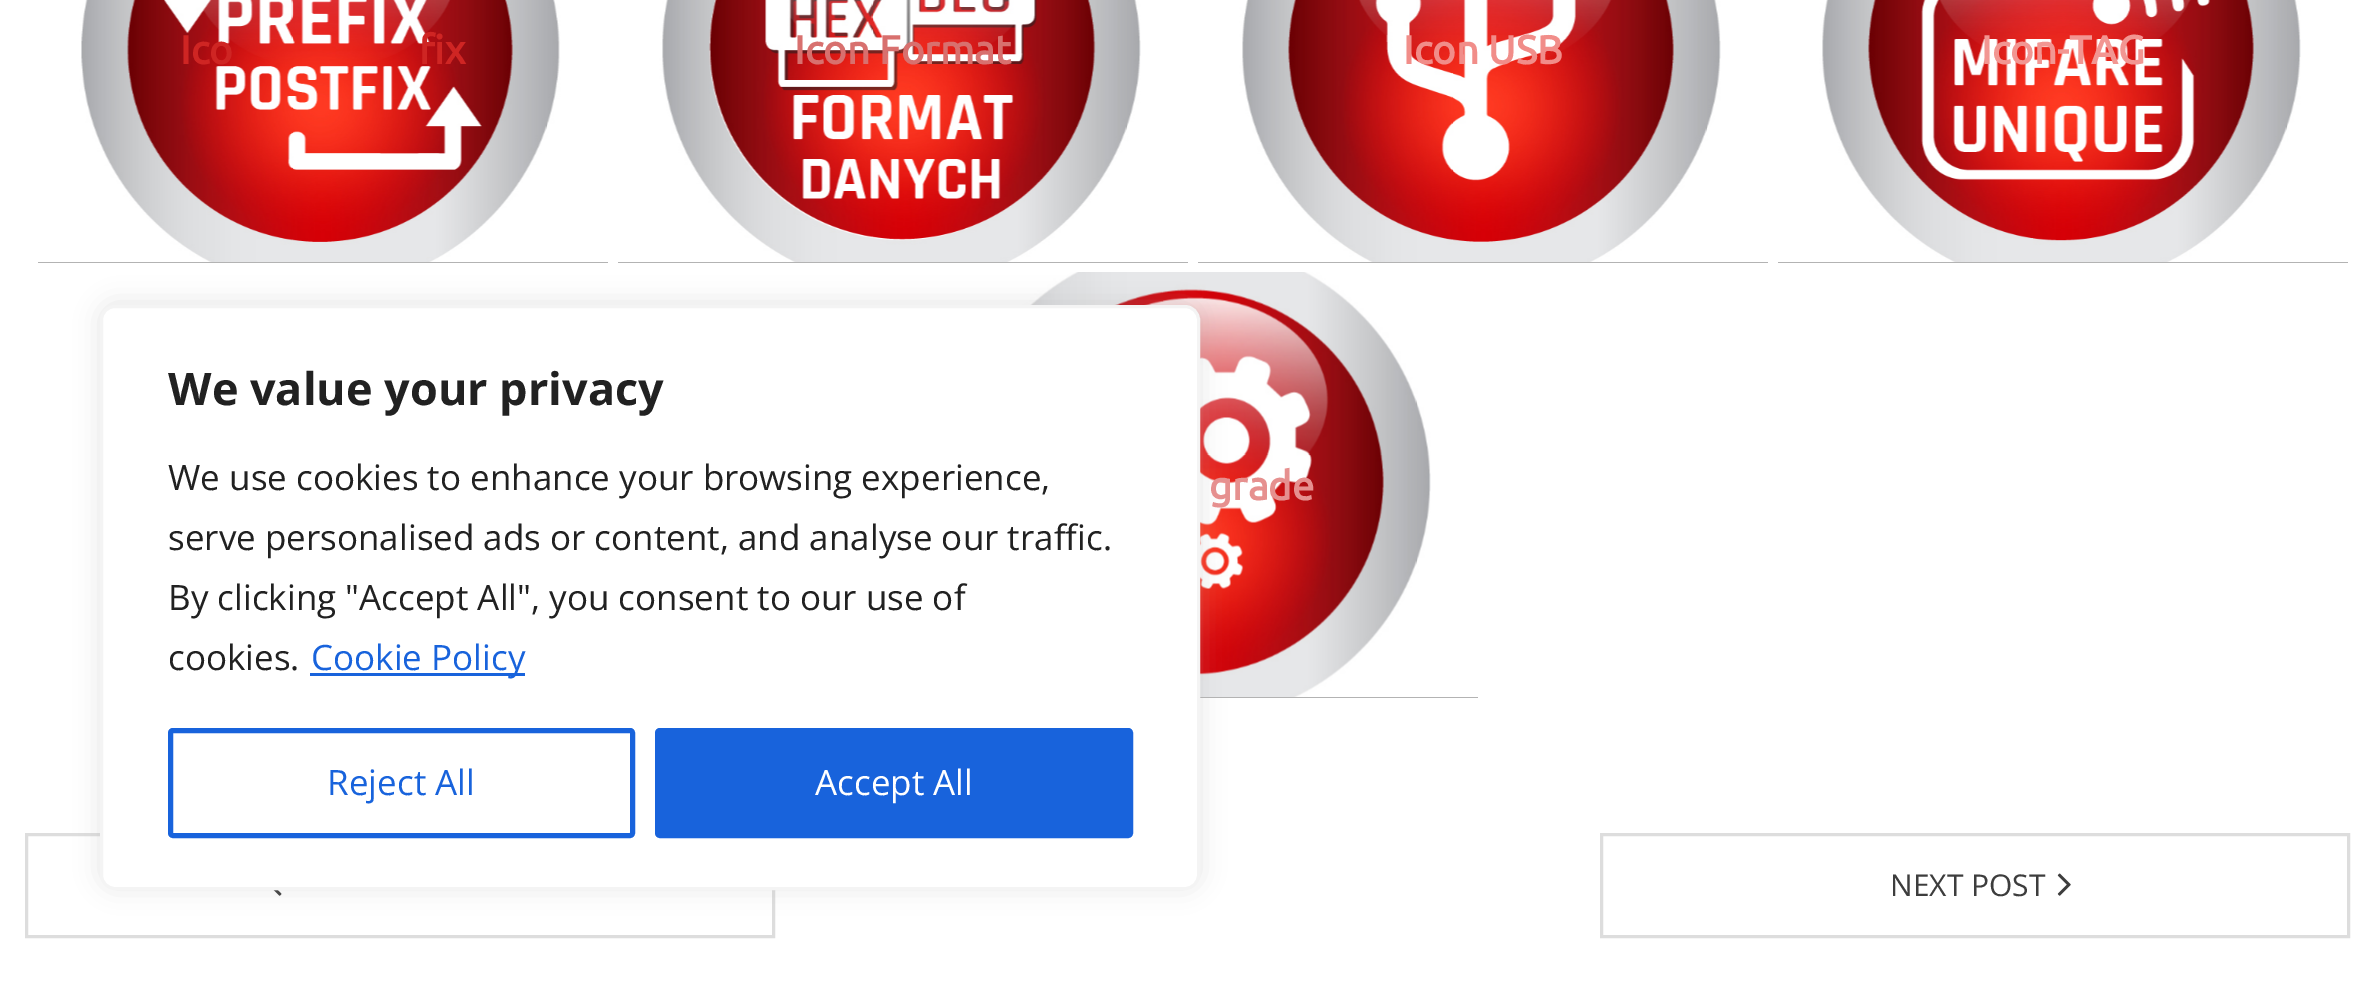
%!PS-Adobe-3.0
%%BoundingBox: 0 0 2374 989
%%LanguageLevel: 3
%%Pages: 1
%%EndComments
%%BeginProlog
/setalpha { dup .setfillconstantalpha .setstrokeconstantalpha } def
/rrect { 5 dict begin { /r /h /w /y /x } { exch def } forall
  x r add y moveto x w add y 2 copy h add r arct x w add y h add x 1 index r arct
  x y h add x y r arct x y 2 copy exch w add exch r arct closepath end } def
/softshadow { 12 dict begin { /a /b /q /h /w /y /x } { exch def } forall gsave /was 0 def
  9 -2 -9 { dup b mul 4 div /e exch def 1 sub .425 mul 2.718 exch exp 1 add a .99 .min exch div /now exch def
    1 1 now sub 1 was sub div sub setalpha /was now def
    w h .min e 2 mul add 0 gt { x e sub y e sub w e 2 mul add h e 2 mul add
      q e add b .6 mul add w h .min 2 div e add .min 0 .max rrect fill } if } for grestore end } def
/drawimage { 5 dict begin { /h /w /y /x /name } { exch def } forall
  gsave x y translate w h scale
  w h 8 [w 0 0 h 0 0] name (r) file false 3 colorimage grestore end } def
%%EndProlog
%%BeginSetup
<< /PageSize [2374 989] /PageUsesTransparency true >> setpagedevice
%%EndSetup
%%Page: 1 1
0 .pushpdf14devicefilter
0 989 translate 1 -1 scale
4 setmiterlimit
1 setgray
0 0 2374 989 rectfill
0.702 setgray
38 262 570 1 rectfill
(images/1.raw) 38 0 570 262 drawimage
618 262 570 1 rectfill
(images/2.raw) 618 0 570 262 drawimage
1198 262 570 1 rectfill
(images/3.raw) 1198 0 570 262 drawimage
1778 262 570 1 rectfill
(images/4.raw) 1778 0 570 262 drawimage
1200 697 278 1 rectfill
(images/5.raw) 908 272 570 425 drawimage
0.867 setgray
3 setlinewidth
26.5 834.5 747 102 rectstroke
(images/6.raw) 273 890 9 6 drawimage
1601.5 834.5 747 102 rectstroke
(images/7.raw) 2057 873 14 23 drawimage
0.675 0.671 0.671 setrgbcolor
100 303 1100 585 15 12.5 0.3 softshadow
1 setgray
101.5 306.5 1097 582 13.5 rrect gsave fill grestore
0.957 setgray
stroke
0.094 0.388 0.863 setrgbcolor
310 673 215 3 rectfill
5 setlinewidth
170.5 730.5 462 105 2.5 rrect stroke
657.5 730.5 473 105 2.5 rrect gsave fill grestore
stroke
/Ubuntu-Bold [40 0 0 -40 0 0] selectfont
0.812 0.145 0.137 setrgbcolor
180 64 moveto (Ico) show
419 64 moveto (fix) show
0.847 0.439 0.431 setrgbcolor
794 64 moveto (Icon Format) show
0.945 0.553 0.537 setrgbcolor
1403 64 moveto (Icon USB) show
0.949 0.588 0.573 setrgbcolor
1981 64 moveto (Icon-TAG) show
0.902 0.565 0.561 setrgbcolor
1209 500 moveto (grade) show
/OpenSans-Regular [30 0 0 -30 0 0] selectfont
0.239 setgray
1890 896 moveto (NEXT POST) show
/OpenSans-Bold [45 0 0 -45 0 0] selectfont
0.129 setgray
168 405 moveto (We value your privacy) show
/OpenSans-Regular [35 0 0 -35 0 0] selectfont
168 490 moveto (We use cookies to enhance your browsing experience,) show
168 550 moveto (serve personalised ads or content, and analyse our traffic.) show
168 610 moveto (By clicking "Accept All", you consent to our use of) show
168 670 moveto (cookies.) show
0.094 0.388 0.863 setrgbcolor
311 670 moveto (Cookie Policy) show
327 795 moveto (Reject All) show
1 setgray
815 795 moveto (Accept All) show
.poppdf14devicefilter showpage
%%EOF
